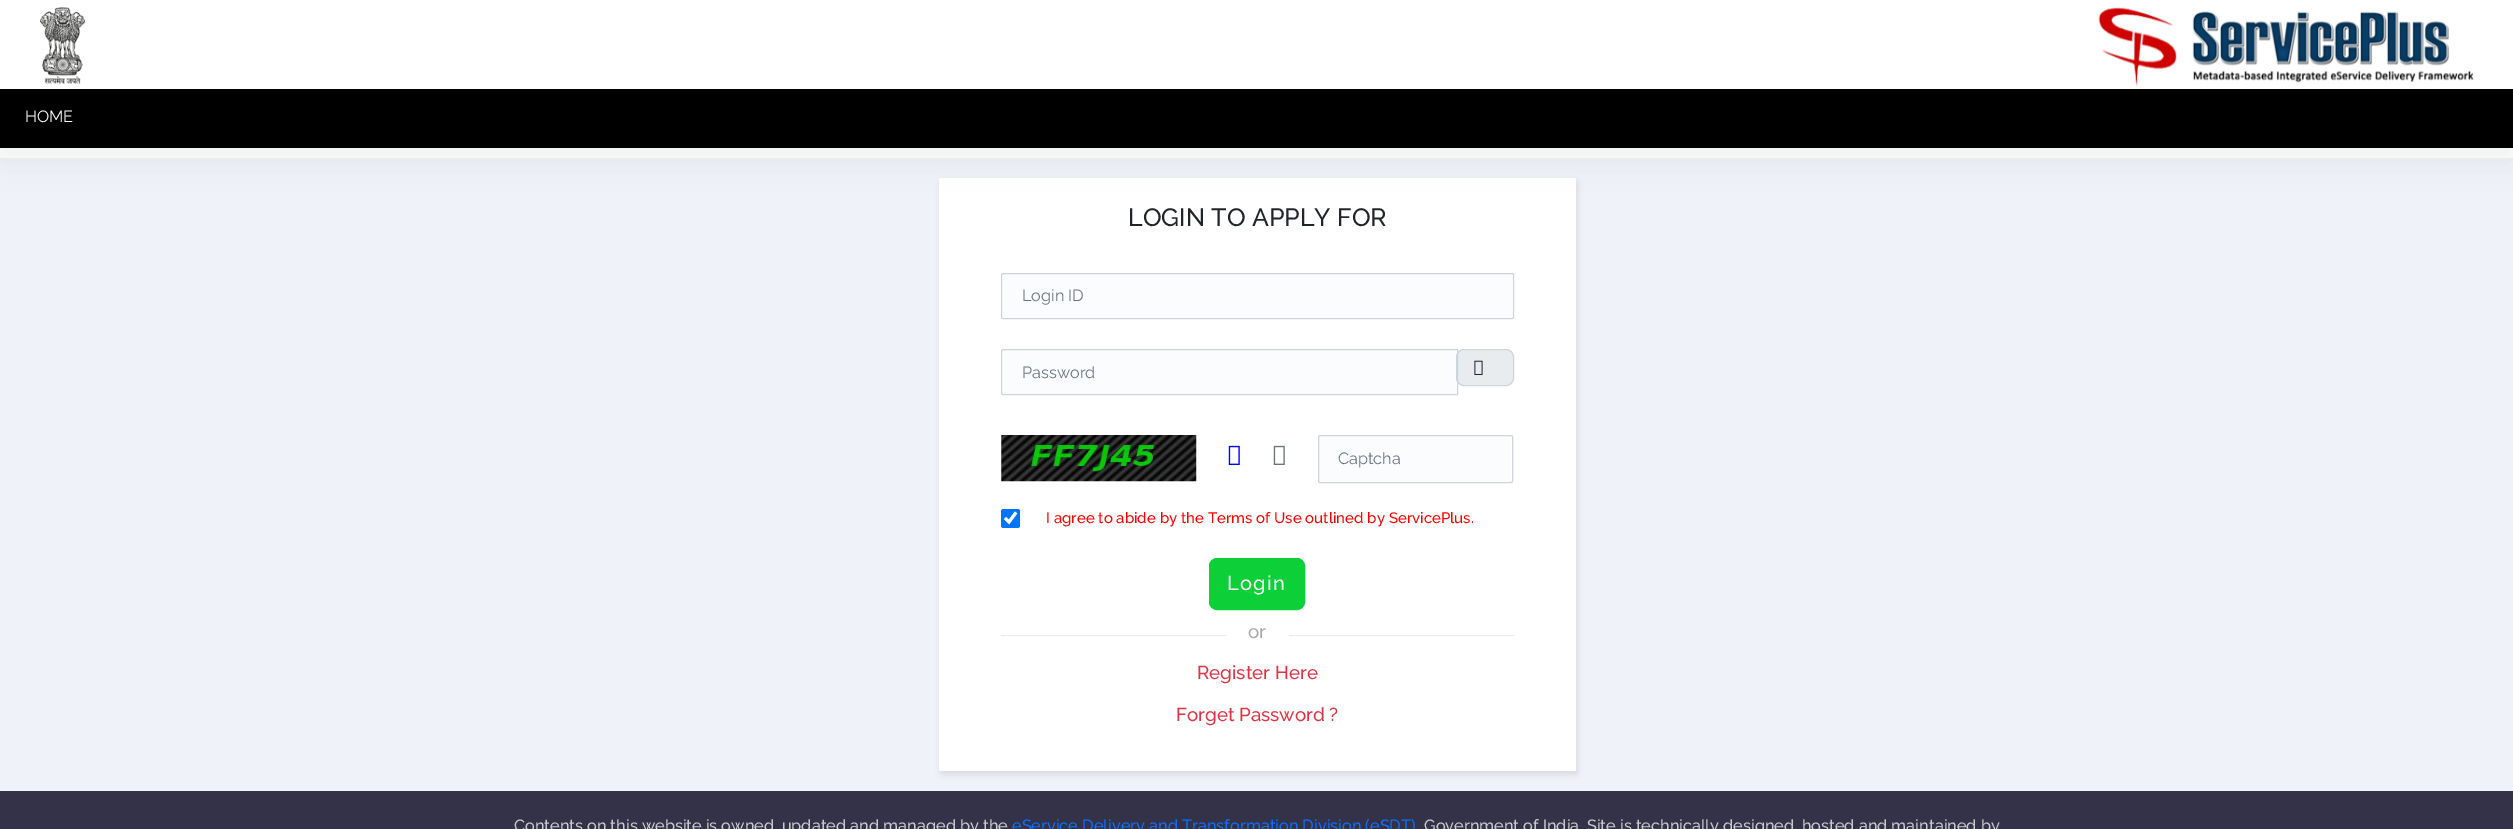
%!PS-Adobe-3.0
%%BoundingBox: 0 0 2513 829
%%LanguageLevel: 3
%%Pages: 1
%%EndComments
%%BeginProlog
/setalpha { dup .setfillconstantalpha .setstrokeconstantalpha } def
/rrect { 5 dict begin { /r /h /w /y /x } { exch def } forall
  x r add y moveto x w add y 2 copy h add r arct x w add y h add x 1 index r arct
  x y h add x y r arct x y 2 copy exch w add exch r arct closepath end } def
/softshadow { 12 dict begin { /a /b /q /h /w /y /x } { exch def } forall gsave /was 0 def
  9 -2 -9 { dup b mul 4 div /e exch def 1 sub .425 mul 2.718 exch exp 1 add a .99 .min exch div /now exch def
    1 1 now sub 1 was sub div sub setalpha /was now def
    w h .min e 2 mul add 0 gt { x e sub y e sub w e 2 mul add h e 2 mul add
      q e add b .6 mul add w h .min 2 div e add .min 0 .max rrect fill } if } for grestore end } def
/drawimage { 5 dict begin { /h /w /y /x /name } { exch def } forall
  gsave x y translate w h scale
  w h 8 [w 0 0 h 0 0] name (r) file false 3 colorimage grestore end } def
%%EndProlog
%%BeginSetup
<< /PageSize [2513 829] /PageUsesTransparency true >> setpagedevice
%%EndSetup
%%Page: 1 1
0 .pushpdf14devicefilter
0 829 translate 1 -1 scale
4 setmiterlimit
1 setgray
0 0 2513 829 rectfill
0.937 0.953 0.976 setrgbcolor
0 158 2513 633 rectfill
0.086 0.086 0.102 setrgbcolor
940 181 638 594 2 2.5 0.1 softshadow
1 setgray
939 178 637 593 2 rrect fill
0.541 0.608 0.647 setrgbcolor
0 13 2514 147 0 19 0.15 softshadow
0 setgray
0 89 2513 59 rectfill
1 setgray
0 0 2513 89 rectfill
(images/1.raw) 40 7 45 77 drawimage
(images/2.raw) 2098 7 376 80 drawimage
0.984 0.988 0.992 setrgbcolor
1003 274 510 44 0.5 rrect fill
0.808 0.831 0.855 setrgbcolor
1001.5 273.5 512 45 1.5 rrect stroke
0.984 0.988 0.992 setrgbcolor
newpath 1003.5 350 moveto 1456 350 lineto 1456 394 lineto 1003.5 394 lineto 1003 394 1003 394 1003 393.5 curveto 1003 350.5 lineto 1003 350 1003 350 1003.5 350 curveto closepath fill
0.914 0.925 0.937 setrgbcolor
1456.5 349.5 57 36 7.5 rrect gsave fill grestore
0.808 0.831 0.855 setrgbcolor
stroke
newpath 1003 349.5 moveto 1457.5 349.5 lineto 1457.5 394.5 lineto 1003 394.5 lineto 1002 394.5 1001.5 394 1001.5 393 curveto 1001.5 351 lineto 1001.5 350 1002 349.5 1003 349.5 curveto closepath stroke
(images/3.raw) 1474 360 9 15 drawimage
(images/4.raw) 1001 435 196 47 drawimage
(images/5.raw) 1228 445 12 20 drawimage
(images/6.raw) 1273 445 12 20 drawimage
0.984 0.988 0.992 setrgbcolor
1319 436 192 45 0.5 rrect fill
0.808 0.831 0.855 setrgbcolor
1318.5 435.5 194 47 1.5 rrect stroke
0 0.459 1 setrgbcolor
1001 509 19 19 2.5 rrect fill
1 setgray
3 setlinewidth
newpath 1005 518 moveto 1009 522 lineto 1016 512.5 lineto stroke
0.051 0.812 0.22 setrgbcolor
1211 560 92 48 6 rrect gsave fill grestore
4 setlinewidth
stroke
0.918 setgray
1001 635 513 1 rectfill
1 setgray
1226 635 63 1 rectfill
0.2 0.196 0.286 setrgbcolor
0 791 2513 38 rectfill
/Raleway-Regular [16.25 0 0 -16.25 0 0] selectfont
1 setgray
25 122 moveto (HOME) show
/Raleway-Medium [25 0 0 -25 0 0] selectfont
0.129 0.145 0.161 setrgbcolor
1128 226 moveto (LOGIN TO APPLY FOR) show
/Raleway-Regular [16.25 0 0 -16.25 0 0] selectfont
0.424 0.459 0.49 setrgbcolor
1022 301 moveto (Login ID) show
1022 378 moveto (Password) show
1338 464 moveto (Captcha) show
/Raleway-Medium [15 0 0 -15 0 0] selectfont
1 0 0 setrgbcolor
1046 523 moveto (I agree to abide by the Terms of Use outlined by ServicePlus.) show
/Raleway-Medium [20 0 0 -20 0 0] selectfont
1 setgray
1227 590 moveto 1.25 0 (Login) ashow
/Raleway-Medium [18.75 0 0 -18.75 0 0] selectfont
0.667 setgray
1248 638 moveto (or) show
0.863 0.208 0.271 setrgbcolor
1197 679 moveto (Register Here) show
1176 721 moveto (Forget Password ?) show
/Raleway-Medium [16.25 0 0 -16.25 0 0] selectfont
0.788 0.792 0.796 setrgbcolor
514 831 moveto (Contents on this website is owned, updated and managed by the) show
0.051 0.431 0.992 setrgbcolor
1012 831 moveto (eService Delivery and Transformation Division \(eSDT\)) show
0.788 0.792 0.796 setrgbcolor
1424 831 moveto (Government of India. Site is technically designed, hosted and maintained by) show
.poppdf14devicefilter showpage
%%EOF
